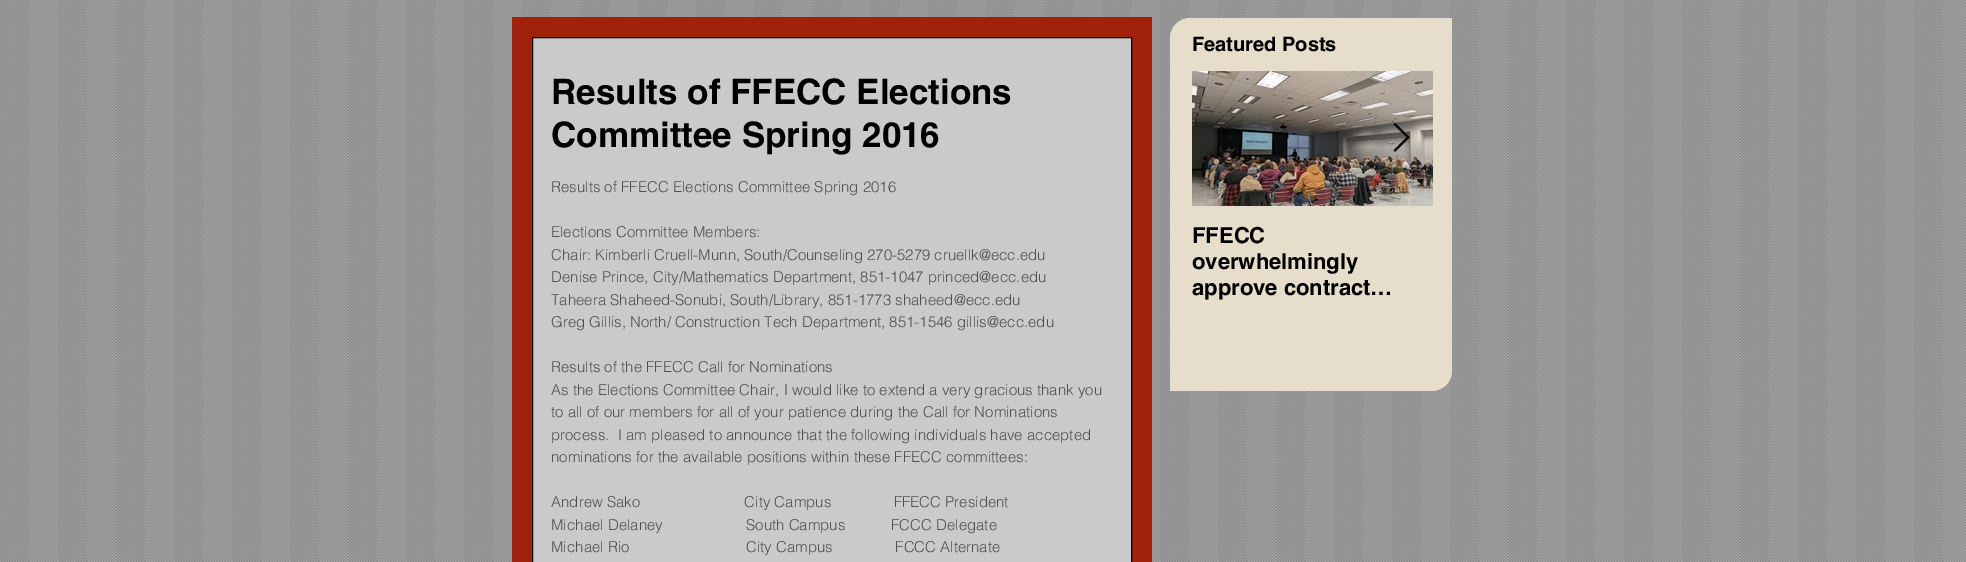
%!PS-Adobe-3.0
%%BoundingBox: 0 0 1966 562
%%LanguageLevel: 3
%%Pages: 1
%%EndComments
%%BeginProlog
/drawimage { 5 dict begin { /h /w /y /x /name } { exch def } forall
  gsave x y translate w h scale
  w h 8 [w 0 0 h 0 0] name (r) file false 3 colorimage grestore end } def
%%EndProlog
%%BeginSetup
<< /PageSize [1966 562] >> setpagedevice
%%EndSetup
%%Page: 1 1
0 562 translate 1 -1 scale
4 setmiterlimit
0.655 setgray
0 0 1966 562 rectfill
(images/1.raw) 0 0 1966 562 drawimage
0.62 0.133 0.047 setrgbcolor
512 17 640 545 rectfill
0.792 setgray
newpath 532.5 37.5 moveto 1131.5 37.5 lineto 1131.5 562.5 lineto 532.5 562.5 lineto closepath gsave fill grestore
0 setgray
stroke
0.902 0.871 0.792 setrgbcolor
newpath 1190 18 moveto 1452 18 lineto 1452 371 lineto 1452 382 1443 391 1432 391 curveto 1170 391 lineto 1170 38 lineto 1170 27 1179 18 1190 18 curveto closepath fill
(images/3.raw) 1192 71 241 135 drawimage
(images/2.raw) 1393 123 17 29 drawimage
/helvetica-Bold [35 0 0 -35 0 0] selectfont
0 setgray
551 104 moveto (Results of FFECC Elections) show
551 147 moveto (Committee Spring 2016) show
/helvetica-Light [15 0 0 -15 0 0] selectfont
0.31 setgray
551 192 moveto (Results of FFECC Elections Committee Spring 2016) show
551 237 moveto (Elections Committee Members:) show
551 260 moveto (Chair: Kimberli Cruell-Munn, South/Counseling 270-5279 cruellk@ecc.edu) show
551 282 moveto (Denise Prince, City/Mathematics Department, 851-1047 princed@ecc.edu) show
551 305 moveto (Taheera Shaheed-Sonubi, South/Library, 851-1773 shaheed@ecc.edu) show
551 327 moveto (Greg Gillis, North/ Construction Tech Department, 851-1546 gillis@ecc.edu) show
551 372 moveto (Results of the FFECC Call for Nominations) show
551 395 moveto (As the Elections Committee Chair, I would like to extend a very gracious thank you) show
551 417 moveto (to all of our members for all of your patience during the Call for Nominations) show
551 440 moveto (process.  I am pleased to announce that the following individuals have accepted) show
551 462 moveto (nominations for the available positions within these FFECC committees:) show
551 507 moveto (Andrew Sako                         City Campus               FFECC President) show
551 530 moveto (Michael Delaney                    South Campus           FCCC Delegate) show
551 552 moveto (Michael Rio                            City Campus               FCCC Alternate) show
/helvetica-Bold [20 0 0 -20 0 0] selectfont
0 setgray
1192 51 moveto (Featured Posts) show
/helvetica-Bold [22 0 0 -22 0 0] selectfont
1192 243 moveto (FFECC) show
1192 269 moveto (overwhelmingly) show
1192 295 moveto (approve contract…) show
showpage
%%EOF
